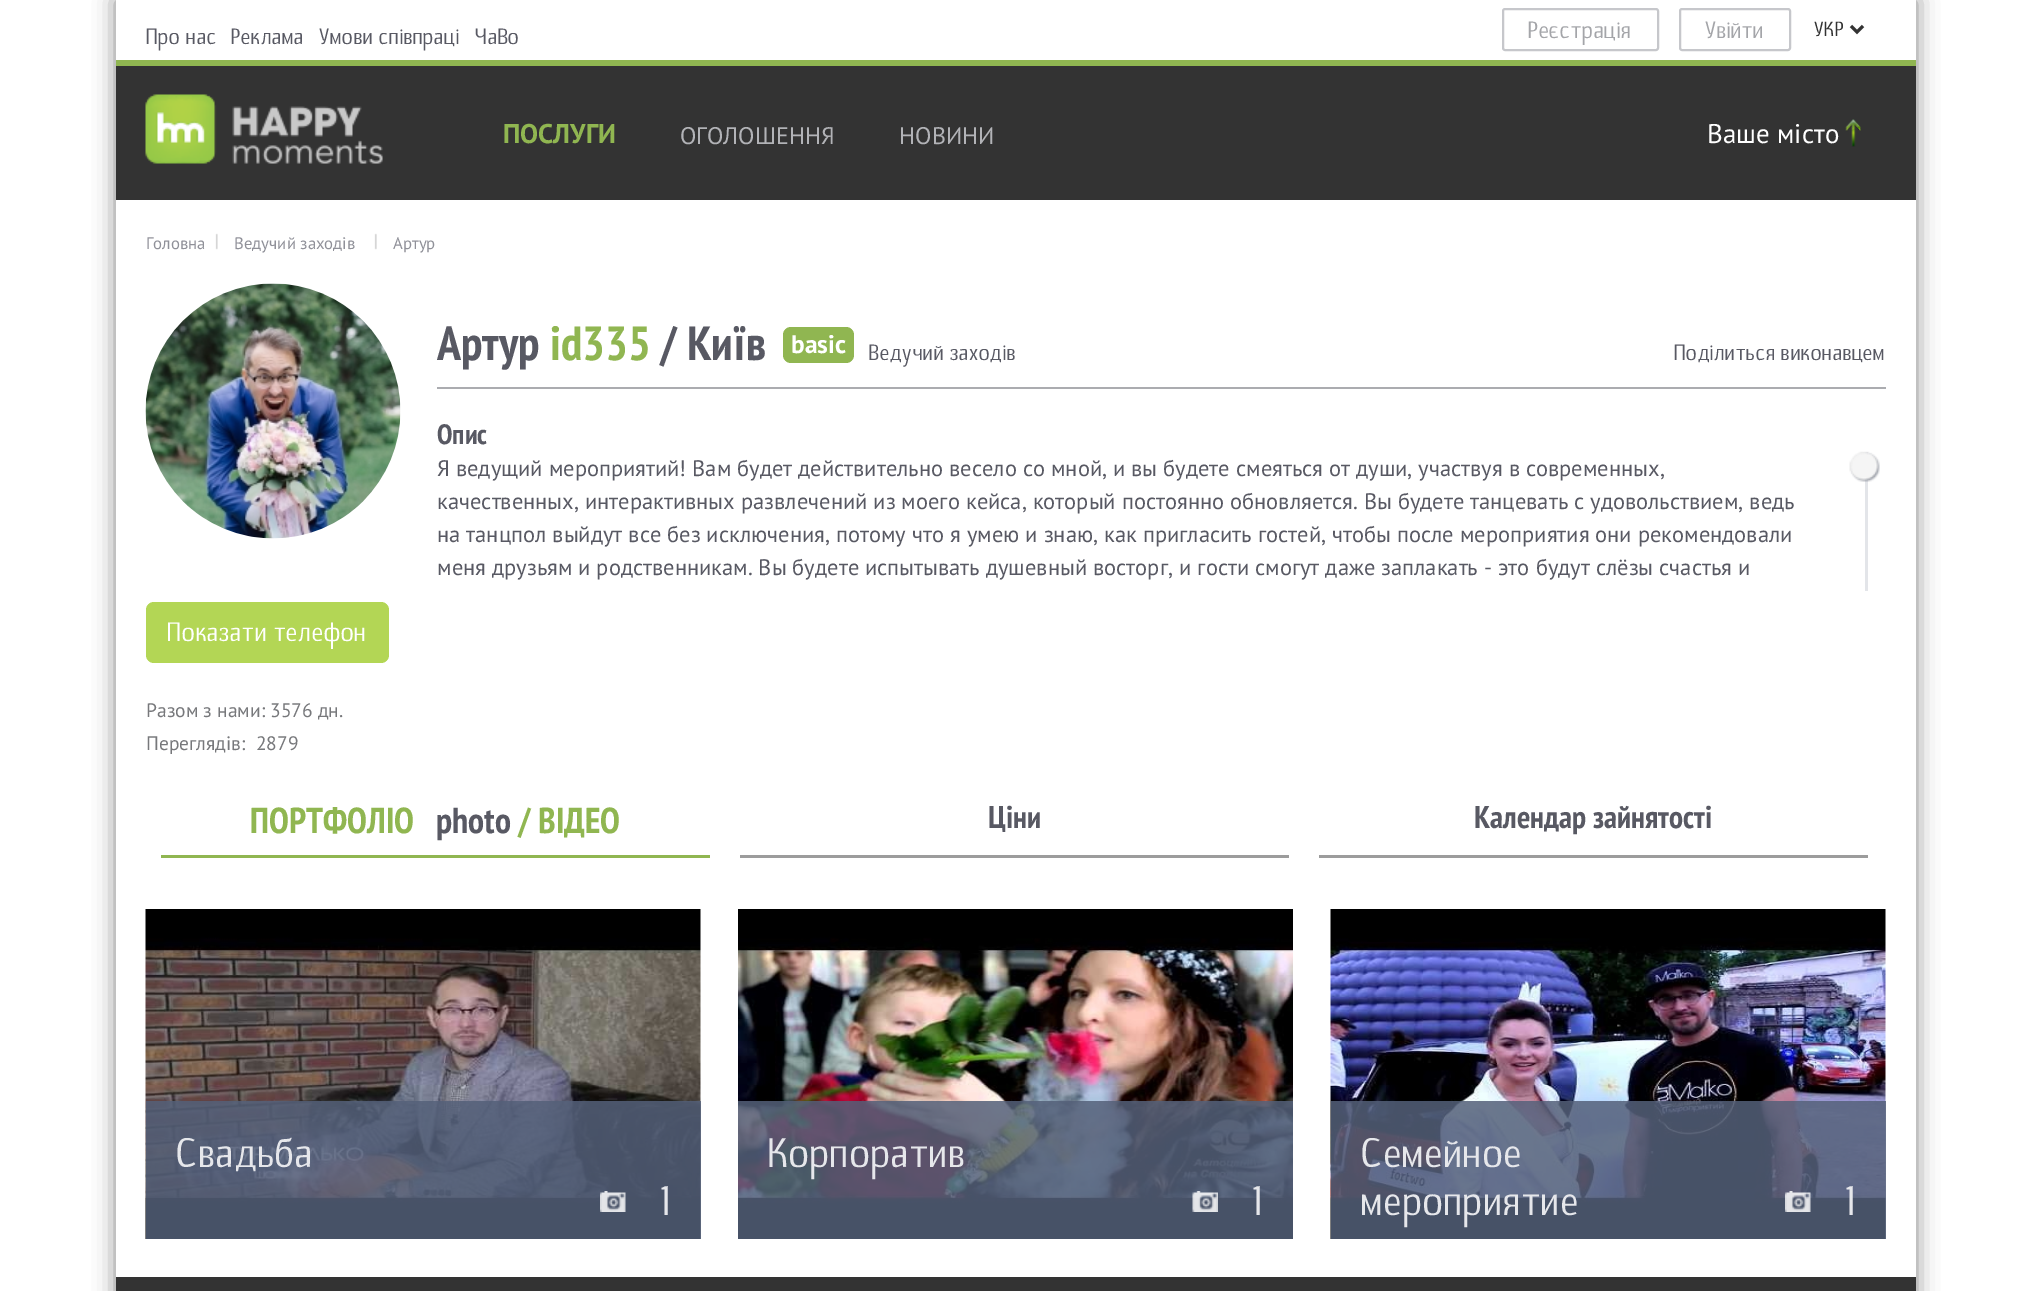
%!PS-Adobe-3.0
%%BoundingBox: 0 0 2031 1291
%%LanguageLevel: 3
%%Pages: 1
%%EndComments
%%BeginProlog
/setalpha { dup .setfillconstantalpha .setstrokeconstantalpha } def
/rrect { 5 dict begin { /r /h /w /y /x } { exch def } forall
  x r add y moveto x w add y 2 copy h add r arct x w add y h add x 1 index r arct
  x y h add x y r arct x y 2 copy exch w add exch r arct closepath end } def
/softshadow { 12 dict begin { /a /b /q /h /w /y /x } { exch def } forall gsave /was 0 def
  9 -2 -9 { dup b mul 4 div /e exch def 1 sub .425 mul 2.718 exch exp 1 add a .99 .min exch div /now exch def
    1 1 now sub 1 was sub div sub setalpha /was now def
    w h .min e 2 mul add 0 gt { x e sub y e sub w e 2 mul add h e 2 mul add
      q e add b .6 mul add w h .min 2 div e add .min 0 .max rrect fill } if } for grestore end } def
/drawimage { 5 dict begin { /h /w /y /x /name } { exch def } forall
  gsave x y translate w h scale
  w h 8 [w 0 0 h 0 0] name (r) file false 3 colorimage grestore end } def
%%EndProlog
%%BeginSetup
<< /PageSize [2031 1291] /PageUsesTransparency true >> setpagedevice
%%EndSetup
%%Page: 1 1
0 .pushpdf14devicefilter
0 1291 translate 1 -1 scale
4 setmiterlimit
1 setgray
0 0 2031 1291 rectfill
0.502 setgray
116 0 1800 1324 0 11 1 softshadow
1 setgray
116 0 1800 1277 rectfill
0.776 0.78 0.796 setrgbcolor
2 setlinewidth
1503 9 155 41 2 rrect stroke
1680 9 110 41 2 rrect stroke
0.2 setgray
3 setlinewidth
newpath 1851 26 moveto 1857 32 lineto 1863 26 lineto stroke
116 66 1800 134 rectfill
0.565 0.714 0.318 setrgbcolor
116 60 1800 6 rectfill
(images/1.raw) 145 94 238 70 drawimage
(images/2.raw) 1845 119 16 28 drawimage
(images/3.raw) 215 233 3 17 drawimage
(images/4.raw) 374 233 3 17 drawimage
0.671 0.675 0.69 setrgbcolor
437 387 1449 2 rectfill
0.565 0.714 0.318 setrgbcolor
783 327 71 36 8 rrect fill
0.89 0.898 0.914 setrgbcolor
1865 452 3 139 rectfill
(images/5.raw) 1849 451 31 31 drawimage
(images/6.raw) 145 283 256 256 drawimage
0.702 0.839 0.333 setrgbcolor
146 602 243 61 8 rrect fill
0.565 0.714 0.318 setrgbcolor
161 855 549 3 rectfill
0.612 setgray
740 855 549 3 rectfill
1319 855 549 3 rectfill
(images/7.raw) 145 909 556 330 drawimage
0.85 setalpha
0.329 0.376 0.475 setrgbcolor
146 1101 555 138 rectfill
1 setalpha
(images/8.raw) 600 1191 26 21 drawimage
(images/9.raw) 738 909 555 330 drawimage
0.85 setalpha
738 1101 555 138 rectfill
1 setalpha
(images/10.raw) 1192 1191 26 21 drawimage
(images/11.raw) 1330 909 556 330 drawimage
0.85 setalpha
1331 1101 555 138 rectfill
1 setalpha
(images/12.raw) 1785 1191 26 21 drawimage
0.2 setgray
116 1277 1800 14 rectfill
/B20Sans-Light [22.5 0 0 -22.5 0 0] selectfont
0.345 0.349 0.388 setrgbcolor
146 44 moveto (Про нас) show
231 44 moveto (Реклама) show
319 44 moveto (Умови співпраці) show
475 44 moveto (ЧаВо) show
/B20Sans-Light [24 0 0 -24 0 0] selectfont
0.643 0.647 0.663 setrgbcolor
1528 38 moveto (Реєстрація) show
1705 38 moveto (Увійти) show
/B20Sans-Light [21 0 0 -21 0 0] selectfont
0.2 setgray
1814 36 moveto (УКР) show
/PTSans-Bold [27 0 0 -27 0 0] selectfont
0.565 0.714 0.318 setrgbcolor
503 143 moveto (ПОСЛУГИ) show
/PTSans-Regular [24 0 0 -24 0 0] selectfont
0.698 0.702 0.718 setrgbcolor
680 144 moveto (ОГОЛОШЕННЯ) show
899 144 moveto (НОВИНИ) show
/PTSans-Regular [27 0 0 -27 0 0] selectfont
1 setgray
1707 143 moveto (Ваше місто) show
/PTSans-Regular [16.75 0 0 -16.75 0 0] selectfont
0.565 0.569 0.6 setrgbcolor
146 249 moveto (Головна) show
234 249 moveto (Ведучий заходів) show
393 249 moveto (Артур) show
/PTSansNarrow-Bold [48 0 0 -48 0 0] selectfont
0.345 0.349 0.388 setrgbcolor
437 360 moveto (Артур) show
0.565 0.714 0.318 setrgbcolor
550 360 moveto (id335) show
0.345 0.349 0.388 setrgbcolor
660 360 moveto (/ Київ) show
/PTSans-Bold [25.5 0 0 -25.5 0 0] selectfont
1 setgray
791 353 moveto (basic) show
/B20Sans-Light [22.5 0 0 -22.5 0 0] selectfont
0.345 0.349 0.388 setrgbcolor
869 360 moveto (Ведучий заходів) show
1674 360 moveto (Поділиться виконавцем) show
/PTSansNarrow-Bold [28 0 0 -28 0 0] selectfont
437 444 moveto (Опис) show
/PTSans-Regular [22.5 0 0 -22.5 0 0] selectfont
437 476 moveto (Я ведущий мероприятий! Вам будет действительно весело со мной, и вы будете смеяться от души, участвуя в современных,) show
437 509 moveto (качественных, интерактивных развлечений из моего кейса, который постоянно обновляется. Вы будете танцевать с удовольствием, ведь) show
437 542 moveto (на танцпол выйдут все без исключения, потому что я умею и знаю, как пригласить гостей, чтобы после мероприятия они рекомендовали) show
437 575 moveto (меня друзьям и родственникам. Вы будете испытывать душевный восторг, и гости смогут даже заплакать - это будут слёзы счастья и) show
/B20Sans-Light [27 0 0 -27 0 0] selectfont
1 setgray
167 641 moveto (Показати телефон) show
/PTSans-Regular [19.5 0 0 -19.5 0 0] selectfont
0.467 0.471 0.482 setrgbcolor
146 717 moveto (Разом з нами: 3576 дн.) show
146 750 moveto (Переглядів:  2879) show
/PTSansNarrow-Bold [36 0 0 -36 0 0] selectfont
0.565 0.714 0.318 setrgbcolor
250 833 moveto (ПОРТФОЛІО) show
0.345 0.349 0.388 setrgbcolor
436 833 moveto (photo) show
0.565 0.714 0.318 setrgbcolor
518 833 moveto (/ ВІДЕО) show
/PTSansNarrow-Bold [31.5 0 0 -31.5 0 0] selectfont
0.345 0.349 0.388 setrgbcolor
988 828 moveto (Ціни) show
1474 828 moveto (Календар зайнятості) show
/B20Sans-Light [42 0 0 -42 0 0] selectfont
0.902 0.906 0.922 setrgbcolor
176 1167 moveto (Свадьба) show
660 1215 moveto (1) show
768 1167 moveto (Корпоратив) show
1252 1215 moveto (1) show
1361 1167 moveto (Семейное) show
1361 1215 moveto (мероприятие) show
1845 1215 moveto (1) show
.poppdf14devicefilter showpage
%%EOF
